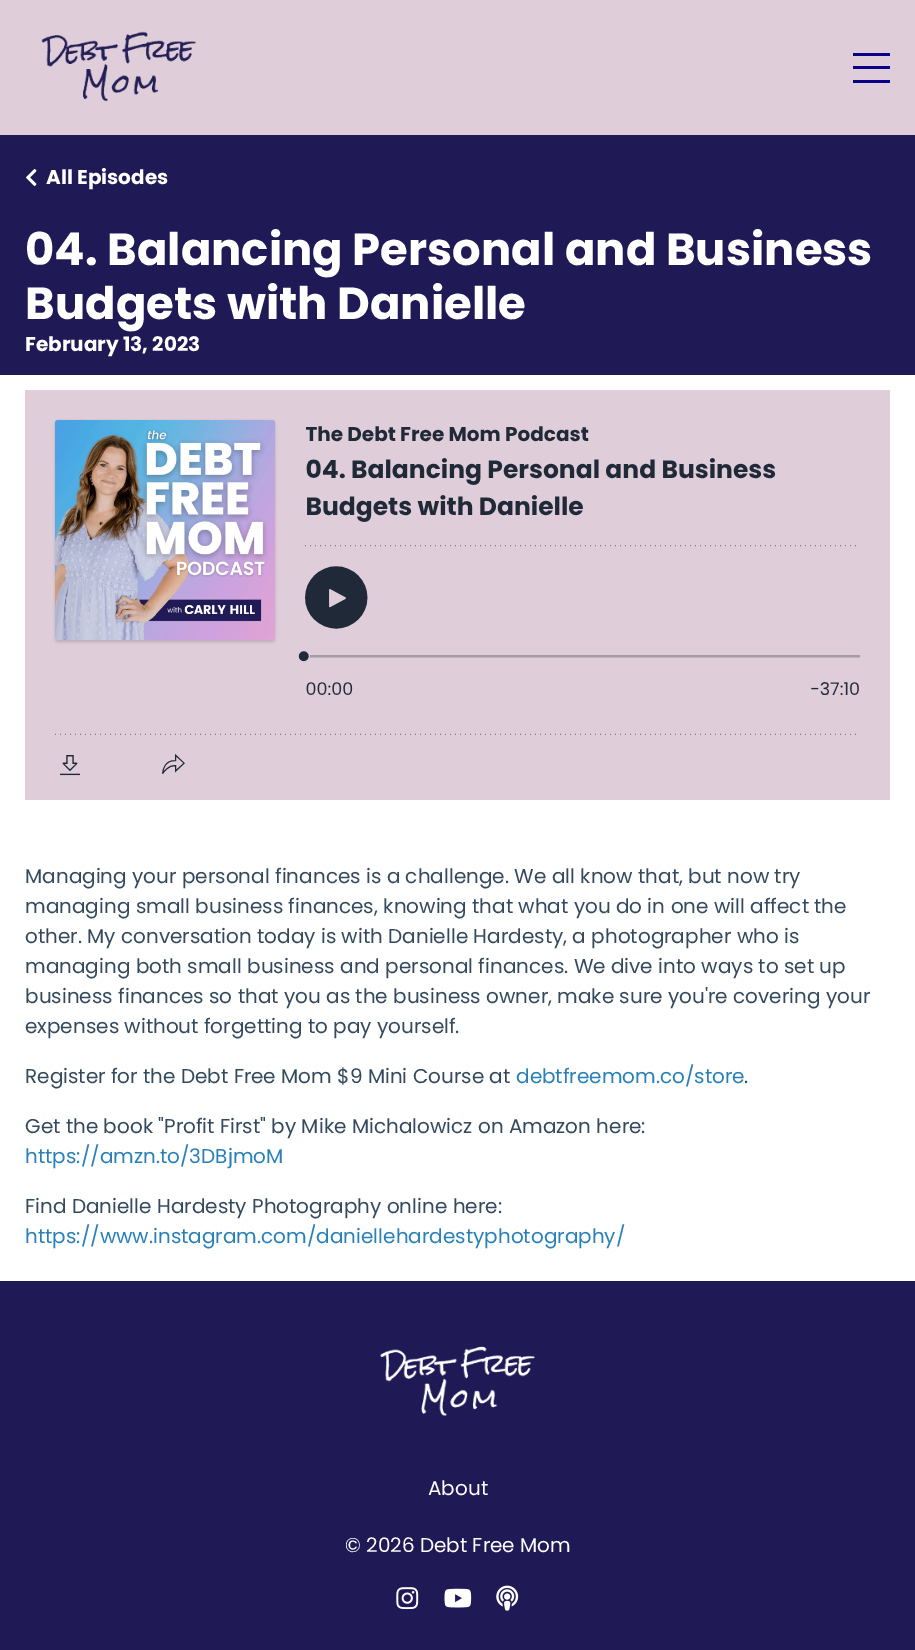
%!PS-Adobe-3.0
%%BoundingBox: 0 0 915 1650
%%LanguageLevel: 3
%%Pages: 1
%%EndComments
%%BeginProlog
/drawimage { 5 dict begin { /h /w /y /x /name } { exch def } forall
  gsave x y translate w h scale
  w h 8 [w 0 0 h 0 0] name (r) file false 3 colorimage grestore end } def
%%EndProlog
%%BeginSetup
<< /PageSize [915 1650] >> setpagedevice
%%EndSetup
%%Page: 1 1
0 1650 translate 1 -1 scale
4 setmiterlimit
1 setgray
0 0 915 1650 rectfill
0.875 0.804 0.851 setrgbcolor
0 0 915 135 rectfill
(images/1.raw) 41 31 155 71 drawimage
0.043 0 0.533 setrgbcolor
853 53 37 3 rectfill
853 66 37 3 rectfill
853 80 37 3 rectfill
0.122 0.098 0.337 setrgbcolor
0 135 915 240 rectfill
(images/2.raw) 26 169 11 17 drawimage
(images/3.raw) 25 390 865 410 drawimage
0 1281 915 369 rectfill
(images/4.raw) 380 1346 155 70 drawimage
(images/5.raw) 396 1587 23 23 drawimage
(images/6.raw) 444 1588 28 20 drawimage
(images/7.raw) 496 1585 23 26 drawimage
/Poppins-Bold [20 0 0 -20 0 0] selectfont
1 setgray
46 184 moveto (All Episodes) show
/Poppins-Bold [45 0 0 -45 0 0] selectfont
25 265 moveto (04. Balancing Personal and Business) show
25 319 moveto (Budgets with Danielle) show
/Poppins-Bold [20 0 0 -20 0 0] selectfont
25 351 moveto (February 13, 2023) show
/Poppins-Regular [20 0 0 -20 0 0] selectfont
0.204 0.286 0.369 setrgbcolor
25 883 moveto (Managing your personal finances is a challenge. We all know that, but now try) show
25 913 moveto (managing small business finances, knowing that what you do in one will affect the) show
25 943 moveto (other. My conversation today is with Danielle Hardesty, a photographer who is) show
25 973 moveto (managing both small business and personal finances. We dive into ways to set up) show
25 1003 moveto (business finances so that you as the business owner, make sure you're covering your) show
25 1033 moveto (expenses without forgetting to pay yourself.) show
25 1083 moveto (Register for the Debt Free Mom $9 Mini Course at) show
0.161 0.502 0.725 setrgbcolor
516 1083 moveto (debtfreemom.co/store) show
0.204 0.286 0.369 setrgbcolor
744 1083 moveto (.) show
25 1133 moveto (Get the book "Profit First" by Mike Michalowicz on Amazon here:) show
0.161 0.502 0.725 setrgbcolor
25 1163 moveto (https://amzn.to/3DBjmoM) show
0.204 0.286 0.369 setrgbcolor
25 1213 moveto (Find Danielle Hardesty Photography online here:) show
0.161 0.502 0.725 setrgbcolor
25 1243 moveto (https://www.instagram.com/daniellehardestyphotography/) show
1 setgray
428 1495 moveto (About) show
345 1552 moveto (© 2026 Debt Free Mom) show
showpage
%%EOF
